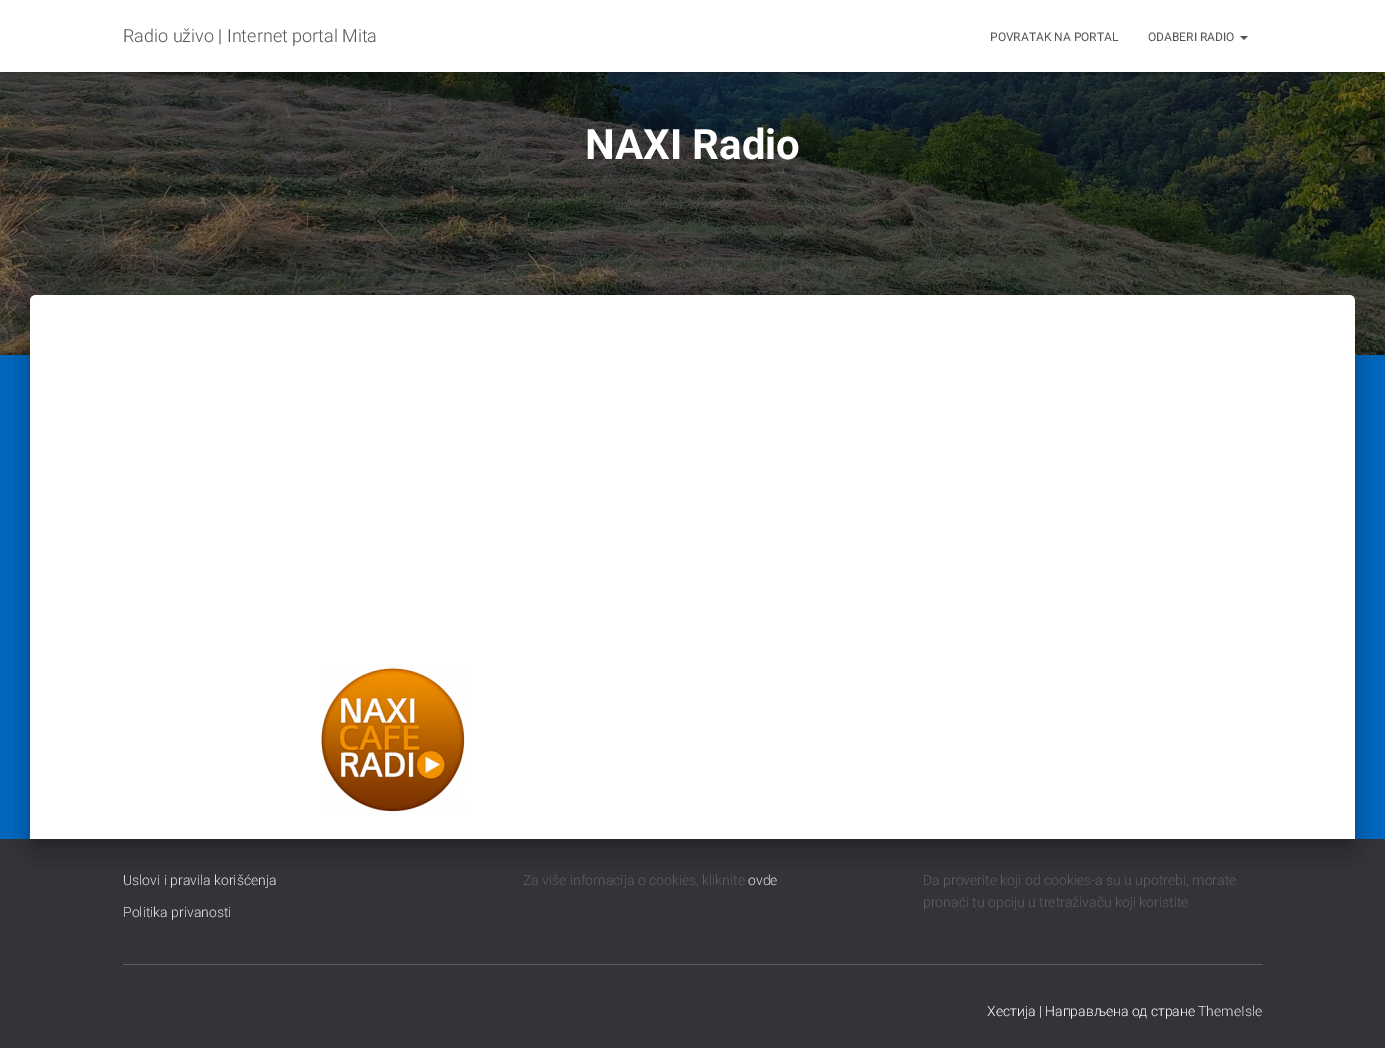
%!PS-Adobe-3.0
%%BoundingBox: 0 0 1385 1048
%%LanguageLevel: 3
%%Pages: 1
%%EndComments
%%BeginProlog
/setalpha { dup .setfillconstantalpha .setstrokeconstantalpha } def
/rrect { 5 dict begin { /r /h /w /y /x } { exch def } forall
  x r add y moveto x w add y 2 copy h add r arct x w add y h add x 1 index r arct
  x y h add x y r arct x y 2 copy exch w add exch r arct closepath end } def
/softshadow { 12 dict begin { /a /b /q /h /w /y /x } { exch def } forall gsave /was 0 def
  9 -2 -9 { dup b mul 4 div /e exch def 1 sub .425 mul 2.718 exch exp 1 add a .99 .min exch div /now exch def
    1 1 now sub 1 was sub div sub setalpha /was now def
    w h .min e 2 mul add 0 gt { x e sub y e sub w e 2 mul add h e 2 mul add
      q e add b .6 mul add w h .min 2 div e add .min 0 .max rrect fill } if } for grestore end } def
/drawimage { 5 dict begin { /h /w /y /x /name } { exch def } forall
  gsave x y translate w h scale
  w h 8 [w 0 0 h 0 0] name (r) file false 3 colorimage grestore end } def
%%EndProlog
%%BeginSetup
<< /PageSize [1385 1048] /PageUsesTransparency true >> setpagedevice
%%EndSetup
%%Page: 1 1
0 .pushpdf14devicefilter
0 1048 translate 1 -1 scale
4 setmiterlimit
0.004 0.4 0.749 setrgbcolor
0 0 1385 1048 rectfill
(images/1.raw) 0 72 1385 283 drawimage
0 setgray
2 6 1381 68 0 2.5 0.1 softshadow
0 1 1385 72 0 5 0.12 softshadow
6 7 1373 60 0 5 0.42 softshadow
1 setgray
0 0 1385 72 rectfill
0.333 setgray
newpath 1240 36 moveto 1248 36 lineto 1244 40 lineto closepath fill
0.196 0.204 0.216 setrgbcolor
0 839 1385 209 rectfill
0 setgray
35 308 1315 534 1 5 0.2 softshadow
25 296 1335 554 11 15 0.12 softshadow
28 309 1329 548 8 12 0.14 softshadow
1 setgray
newpath 36 295 moveto 1349 295 lineto 1352.5 295 1355 297.5 1355 301 curveto 1355 839 lineto 30 839 lineto 30 301 lineto 30 297.5 32.5 295 36 295 curveto closepath fill
(images/2.raw) 321 668 144 144 drawimage
0.369 setgray
123 964 1140 1 rectfill
/Roboto-Light [18 0 0 -18 0 0] selectfont
0.333 setgray
123 42 moveto (Radio uživo | Internet portal Mita) show
/Roboto-Regular [12 0 0 -12 0 0] selectfont
990 41 moveto (POVRATAK NA PORTAL) show
1148 41 moveto (ODABERI RADIO) show
/Roboto-Bold [42 0 0 -42 0 0] selectfont
1 setgray
585 159 moveto (NAXI Radio) show
/Roboto-Light [14 0 0 -14 0 0] selectfont
0.886 0.89 0.89 setrgbcolor
123 885 moveto (Uslovi i pravila korišćenja) show
123 917 moveto (Politika privanosti) show
0.369 setgray
523 885 moveto (Za više infomacija o cookies, kliknite) show
0.886 0.89 0.89 setrgbcolor
748 885 moveto (ovde) show
0.369 setgray
923 885 moveto (Da proverite koji od cookies-a su u upotrebi, morate) show
923 907 moveto (pronaći tu opciju u tretraživaču koji koristite) show
1 setgray
987 1016 moveto (Хестија | Направљена од стране) show
0.886 0.89 0.89 setrgbcolor
1198 1016 moveto (ThemeIsle) show
.poppdf14devicefilter showpage
%%EOF
